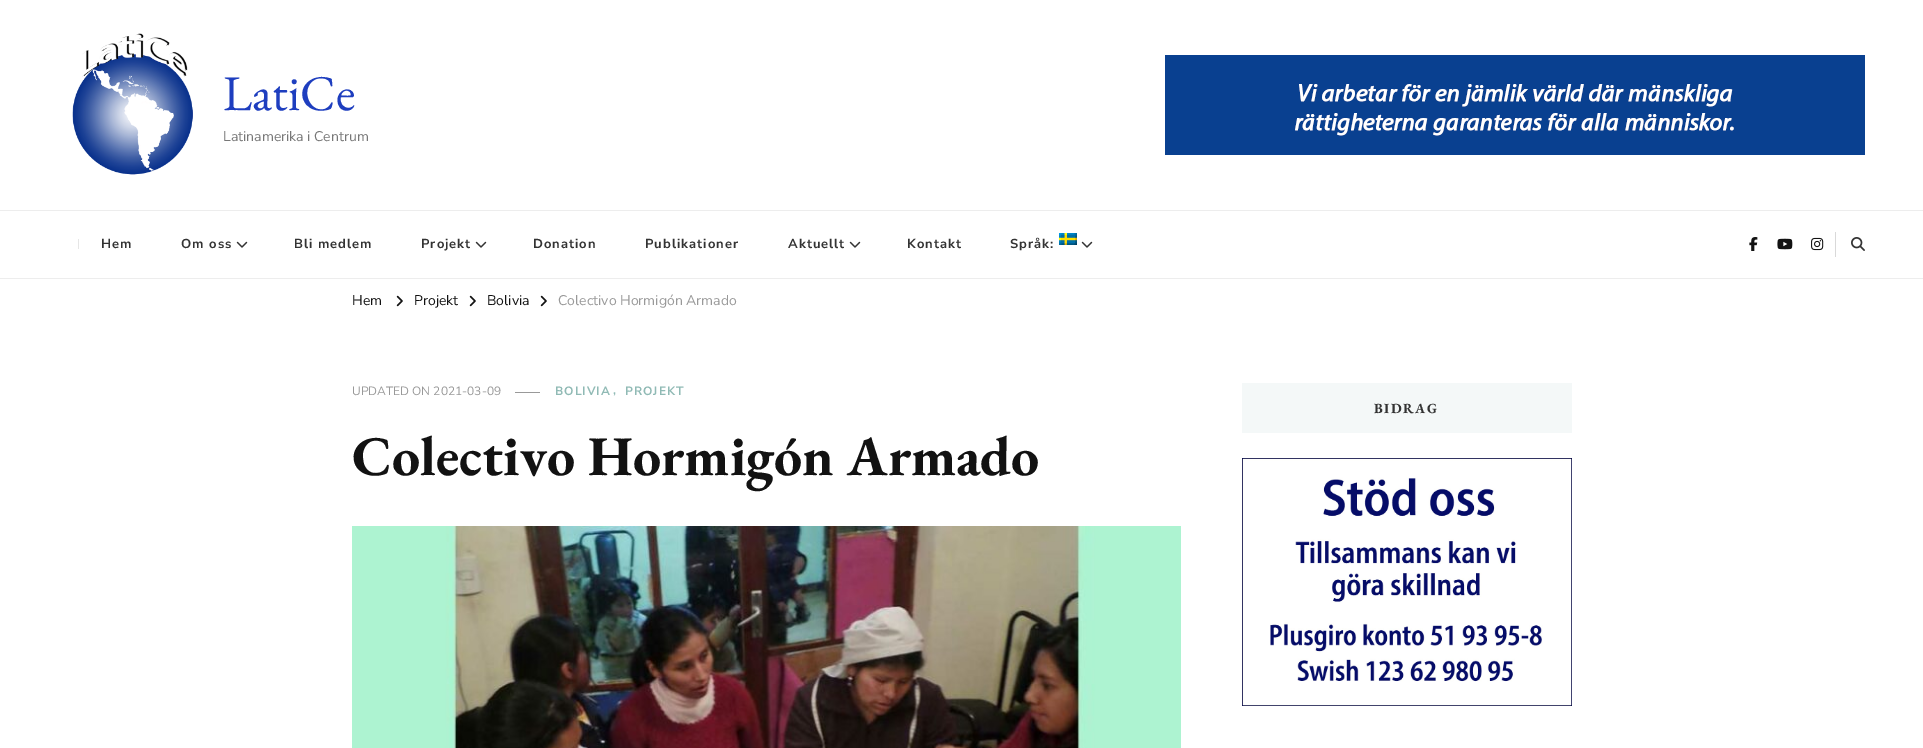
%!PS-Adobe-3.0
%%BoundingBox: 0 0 1923 748
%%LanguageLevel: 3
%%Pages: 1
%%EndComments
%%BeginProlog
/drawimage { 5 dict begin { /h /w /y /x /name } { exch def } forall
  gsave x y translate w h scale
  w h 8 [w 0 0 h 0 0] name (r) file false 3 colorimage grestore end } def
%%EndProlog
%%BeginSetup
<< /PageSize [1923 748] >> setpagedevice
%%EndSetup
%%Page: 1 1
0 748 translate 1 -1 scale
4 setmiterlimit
1 setgray
0 0 1923 748 rectfill
(images/1.raw) 72 33 121 142 drawimage
(images/2.raw) 1165 55 700 100 drawimage
0.929 setgray
0 210 1923 1 rectfill
0 278 1923 1 rectfill
0.902 setgray
78 239 1 10 rectfill
(images/3.raw) 236 241 12 7 drawimage
(images/3.raw) 475 241 12 7 drawimage
(images/3.raw) 849 241 12 7 drawimage
(images/4.raw) 1059 233 18 12 drawimage
(images/3.raw) 1081 241 12 7 drawimage
(images/5.raw) 1749 237 9 14 drawimage
(images/6.raw) 1777 238 16 12 drawimage
(images/7.raw) 1811 237 13 14 drawimage
0.851 setgray
1835 232 1 25 rectfill
(images/8.raw) 1851 237 14 14 drawimage
(images/9.raw) 396 295 7 12 drawimage
(images/9.raw) 469 295 7 12 drawimage
(images/9.raw) 540 295 7 12 drawimage
0.6 setgray
515 392 25 1 rectfill
(images/10.raw) 352 526 829 222 drawimage
0.957 0.973 0.973 setrgbcolor
1242 383 330 50 rectfill
(images/11.raw) 1242 458 330 248 drawimage
/EBGaramond-Regular [50 0 0 -50 0 0] selectfont
0.118 0.243 0.749 setrgbcolor
223 110 moveto (LatiCe) show
/NunitoSans-Regular [14 0 0 -14 0 0] selectfont
0.467 setgray
223 141 moveto (Latinamerika i Centrum) show
/NunitoSans-Bold [13 0 0 -13 0 0] selectfont
0.2 setgray
101 248 moveto 1 0 (Hem) ashow
181 248 moveto 1 0 (Om oss) ashow
294 248 moveto 1 0 (Bli medlem) ashow
421 248 moveto 1 0 (Projekt) ashow
533 248 moveto 1 0 (Donation) ashow
645 248 moveto 1 0 (Publikationer) ashow
788 248 moveto 1 0 (Aktuellt) ashow
907 248 moveto 1 0 (Kontakt) ashow
1010 248 moveto 1 0 (Språk:) ashow
/NunitoSans-Regular [14 0 0 -14 0 0] selectfont
0.071 setgray
352 305 moveto (Hem) show
414 305 moveto (Projekt) show
487 305 moveto (Bolivia) show
0.6 setgray
558 305 moveto (Colectivo Hormigón Armado) show
/NunitoSans-Regular [12 0 0 -12 0 0] selectfont
352 395 moveto (UPDATED ON 2021-03-09) show
/NunitoSans-Bold [12 0 0 -12 0 0] selectfont
0.565 0.729 0.71 setrgbcolor
555 395 moveto 1 0 (BOLIVIA) ashow
613 394 moveto 1 0 (,) ashow
625 395 moveto 1 0 (PROJEKT) ashow
/EBGaramond-Bold [56 0 0 -56 0 0] selectfont
0.071 setgray
352 475 moveto (Colectivo Hormigón Armado) show
/EBGaramond-Bold [14 0 0 -14 0 0] selectfont
0.2 setgray
1374 413 moveto 1.5 0 (BIDRAG) ashow
showpage
%%EOF
